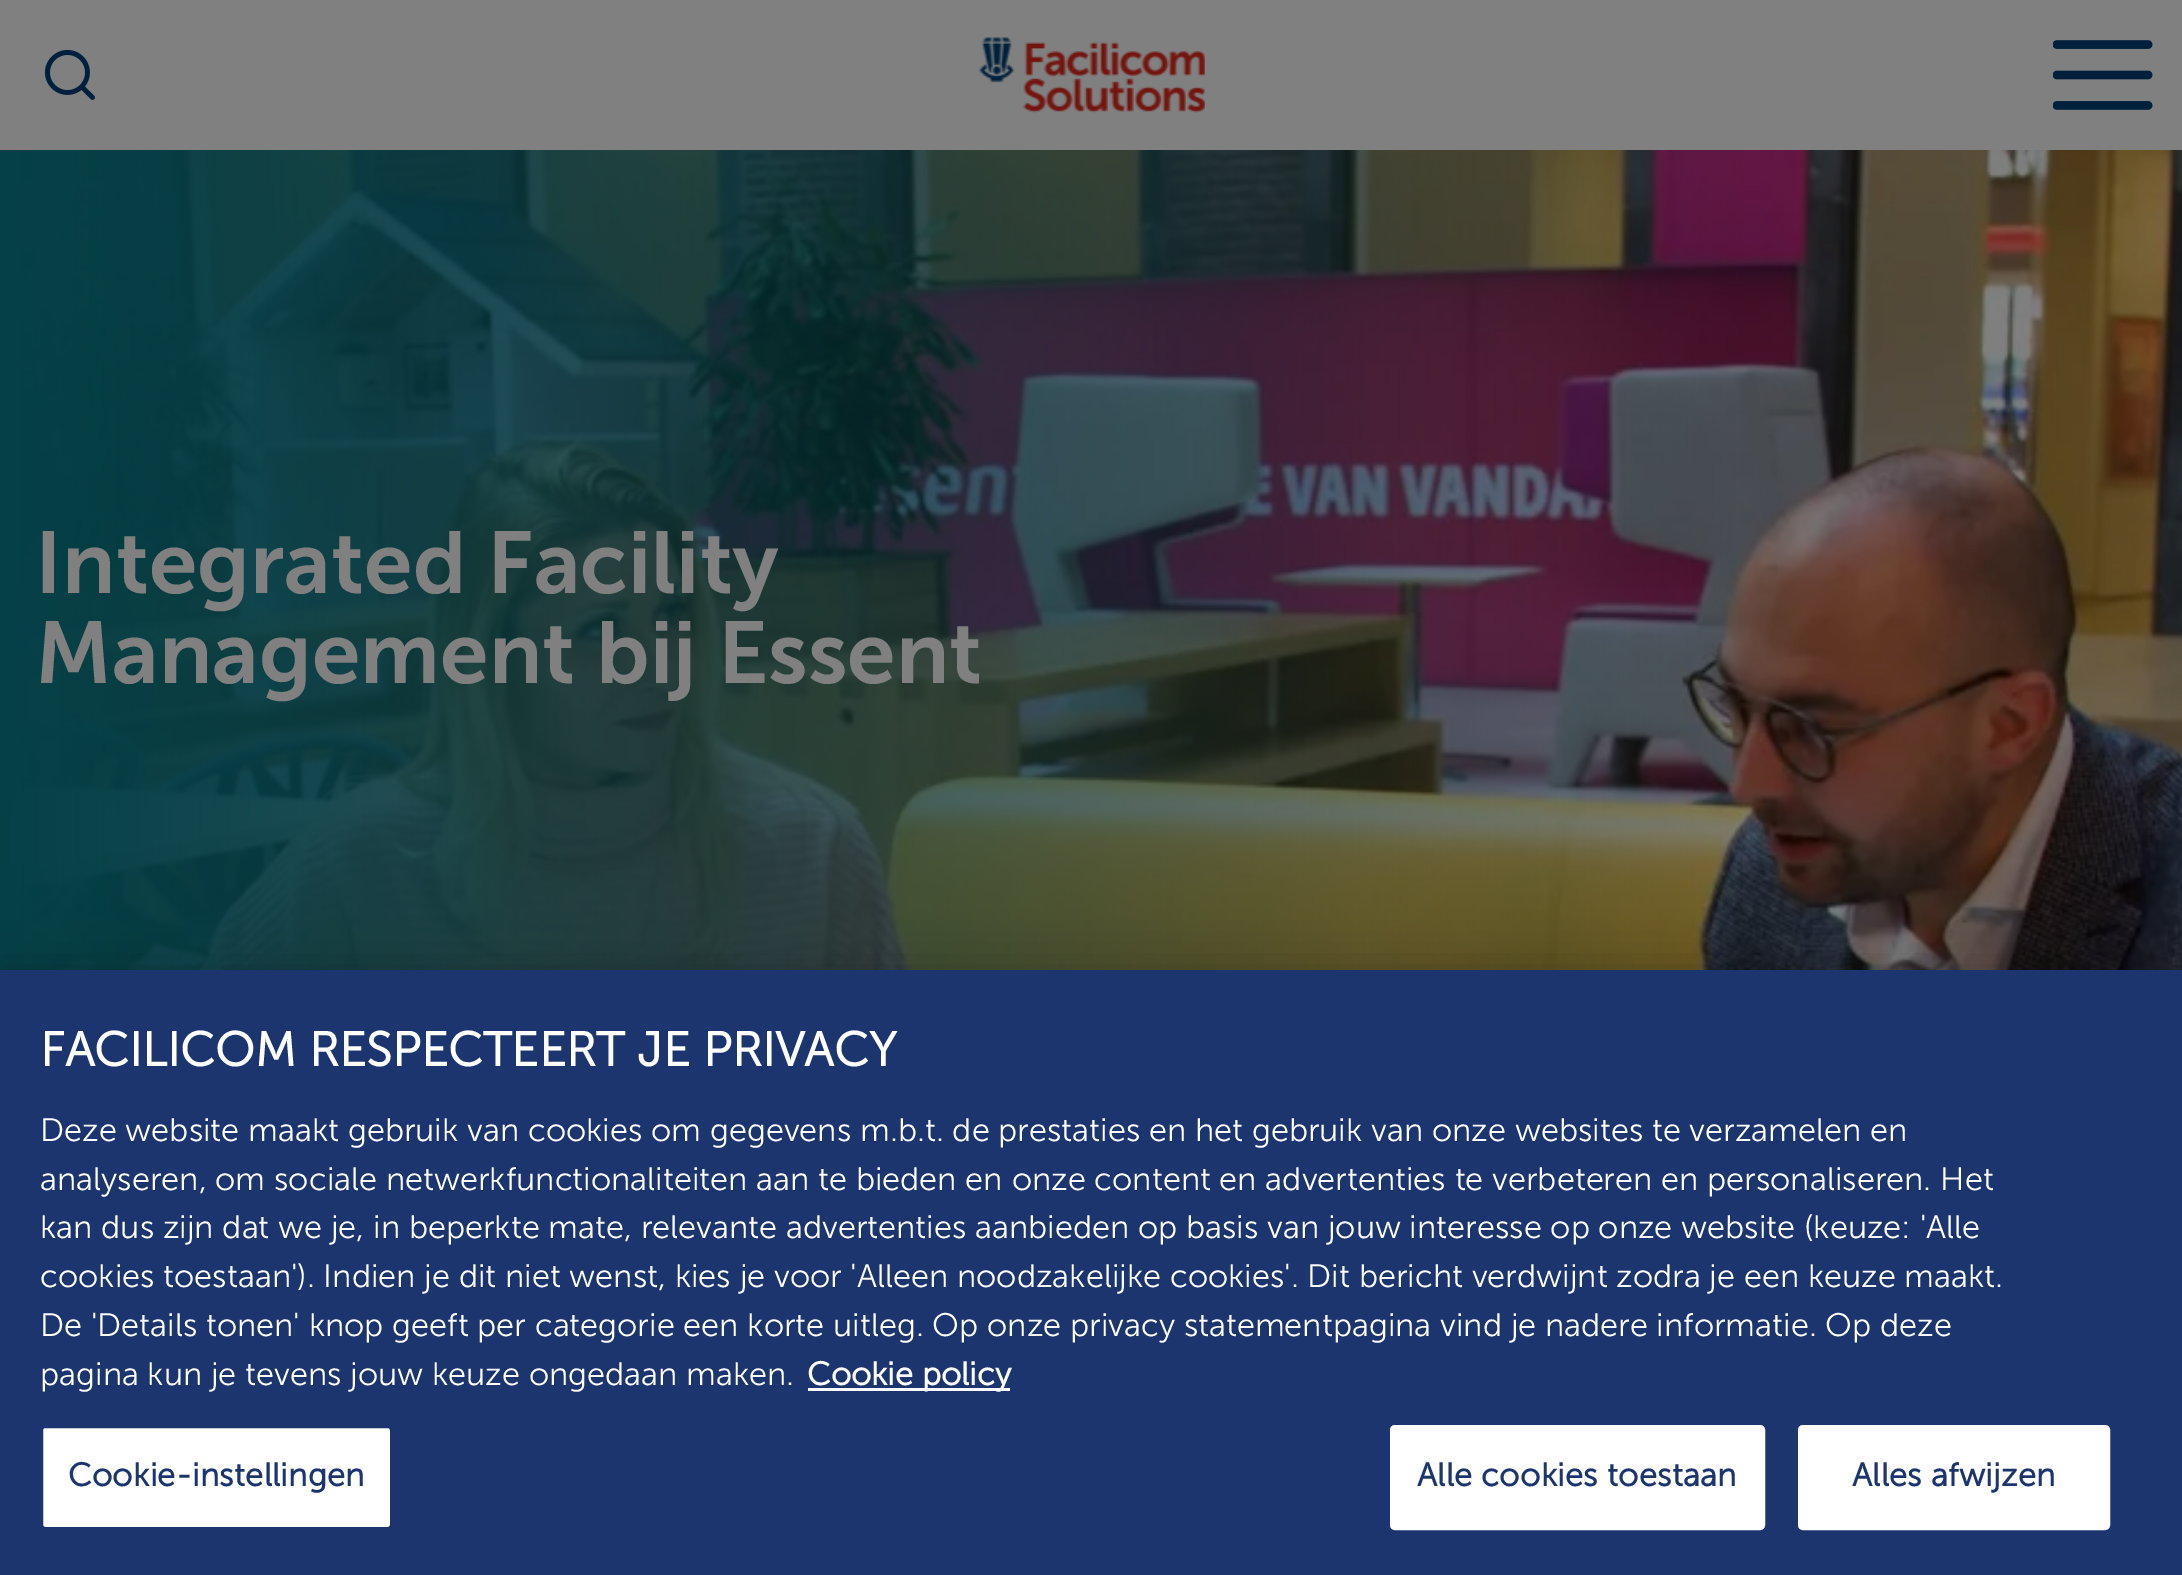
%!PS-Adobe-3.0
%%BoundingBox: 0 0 2182 1575
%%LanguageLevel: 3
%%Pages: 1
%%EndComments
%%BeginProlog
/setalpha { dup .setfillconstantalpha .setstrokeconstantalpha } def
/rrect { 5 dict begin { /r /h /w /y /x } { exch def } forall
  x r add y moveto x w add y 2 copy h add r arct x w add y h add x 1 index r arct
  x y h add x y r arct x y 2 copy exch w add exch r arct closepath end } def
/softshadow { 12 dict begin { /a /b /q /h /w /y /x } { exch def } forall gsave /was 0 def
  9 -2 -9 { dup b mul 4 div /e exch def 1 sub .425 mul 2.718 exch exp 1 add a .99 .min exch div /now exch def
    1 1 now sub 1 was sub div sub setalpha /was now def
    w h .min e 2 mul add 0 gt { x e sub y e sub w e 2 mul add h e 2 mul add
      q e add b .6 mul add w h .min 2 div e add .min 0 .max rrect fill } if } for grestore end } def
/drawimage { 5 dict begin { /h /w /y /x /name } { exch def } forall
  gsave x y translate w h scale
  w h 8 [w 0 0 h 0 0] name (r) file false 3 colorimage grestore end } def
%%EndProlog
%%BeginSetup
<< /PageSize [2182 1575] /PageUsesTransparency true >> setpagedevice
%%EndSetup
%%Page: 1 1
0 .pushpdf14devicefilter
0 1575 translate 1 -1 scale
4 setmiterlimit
1 setgray
0 0 2182 1575 rectfill
0.502 setgray
0 0 2182 150 rectfill
(images/1.raw) 44 49 51 51 drawimage
(images/2.raw) 978 37 227 76 drawimage
(images/3.raw) 2053 40 100 70 drawimage
(images/4.raw) 0 150 2182 820 drawimage
0 setgray
0 970 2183 605 0 22.5 0.2 softshadow
0.114 0.208 0.431 setrgbcolor
0 970 2182 605 rectfill
1 setgray
808 1388 202 3 rectfill
41.5 1426.5 350 102 3.5 rrect gsave fill grestore
0.114 0.208 0.431 setrgbcolor
3 setlinewidth
stroke
1 setgray
1391.5 1426.5 372 102 3.5 rrect gsave fill grestore
stroke
1799.5 1426.5 309 102 3.5 rrect gsave fill grestore
stroke
/MuseoSans-SemiBold [87.5 0 0 -87.5 0 0] selectfont
0.502 setgray
35 593 moveto (Integrated Facility) show
35 683 moveto (Management bij Essent) show
/MuseoSans-Bold [48 0 0 -48 0 0] selectfont
1 setgray
40 1066 moveto (FACILICOM RESPECTEERT JE PRIVACY) show
/MuseoSans-Light [32.52 0 0 -32.52 0 0] selectfont
40 1141 moveto (Deze website maakt gebruik van cookies om gegevens m.b.t. de prestaties en het gebruik van onze websites te verzamelen en) show
40 1190 moveto (analyseren, om sociale netwerkfunctionaliteiten aan te bieden en onze content en advertenties te verbeteren en personaliseren. Het) show
40 1238 moveto (kan dus zijn dat we je, in beperkte mate, relevante advertenties aanbieden op basis van jouw interesse op onze website \(keuze: 'Alle) show
40 1287 moveto (cookies toestaan'\). Indien je dit niet wenst, kies je voor 'Alleen noodzakelijke cookies'. Dit bericht verdwijnt zodra je een keuze maakt.) show
40 1336 moveto (De 'Details tonen' knop geeft per categorie een korte uitleg. Op onze privacy statementpagina vind je nadere informatie. Op deze) show
40 1385 moveto (pagina kun je tevens jouw keuze ongedaan maken.) show
/MuseoSans-Bold [32.52 0 0 -32.52 0 0] selectfont
807 1385 moveto (Cookie policy) show
0.114 0.208 0.431 setrgbcolor
68 1486 moveto 0.3 0 (Cookie-instellingen) ashow
1417 1486 moveto 0.3 0 (Alle cookies toestaan) ashow
1852 1486 moveto 0.3 0 (Alles afwijzen) ashow
.poppdf14devicefilter showpage
%%EOF
